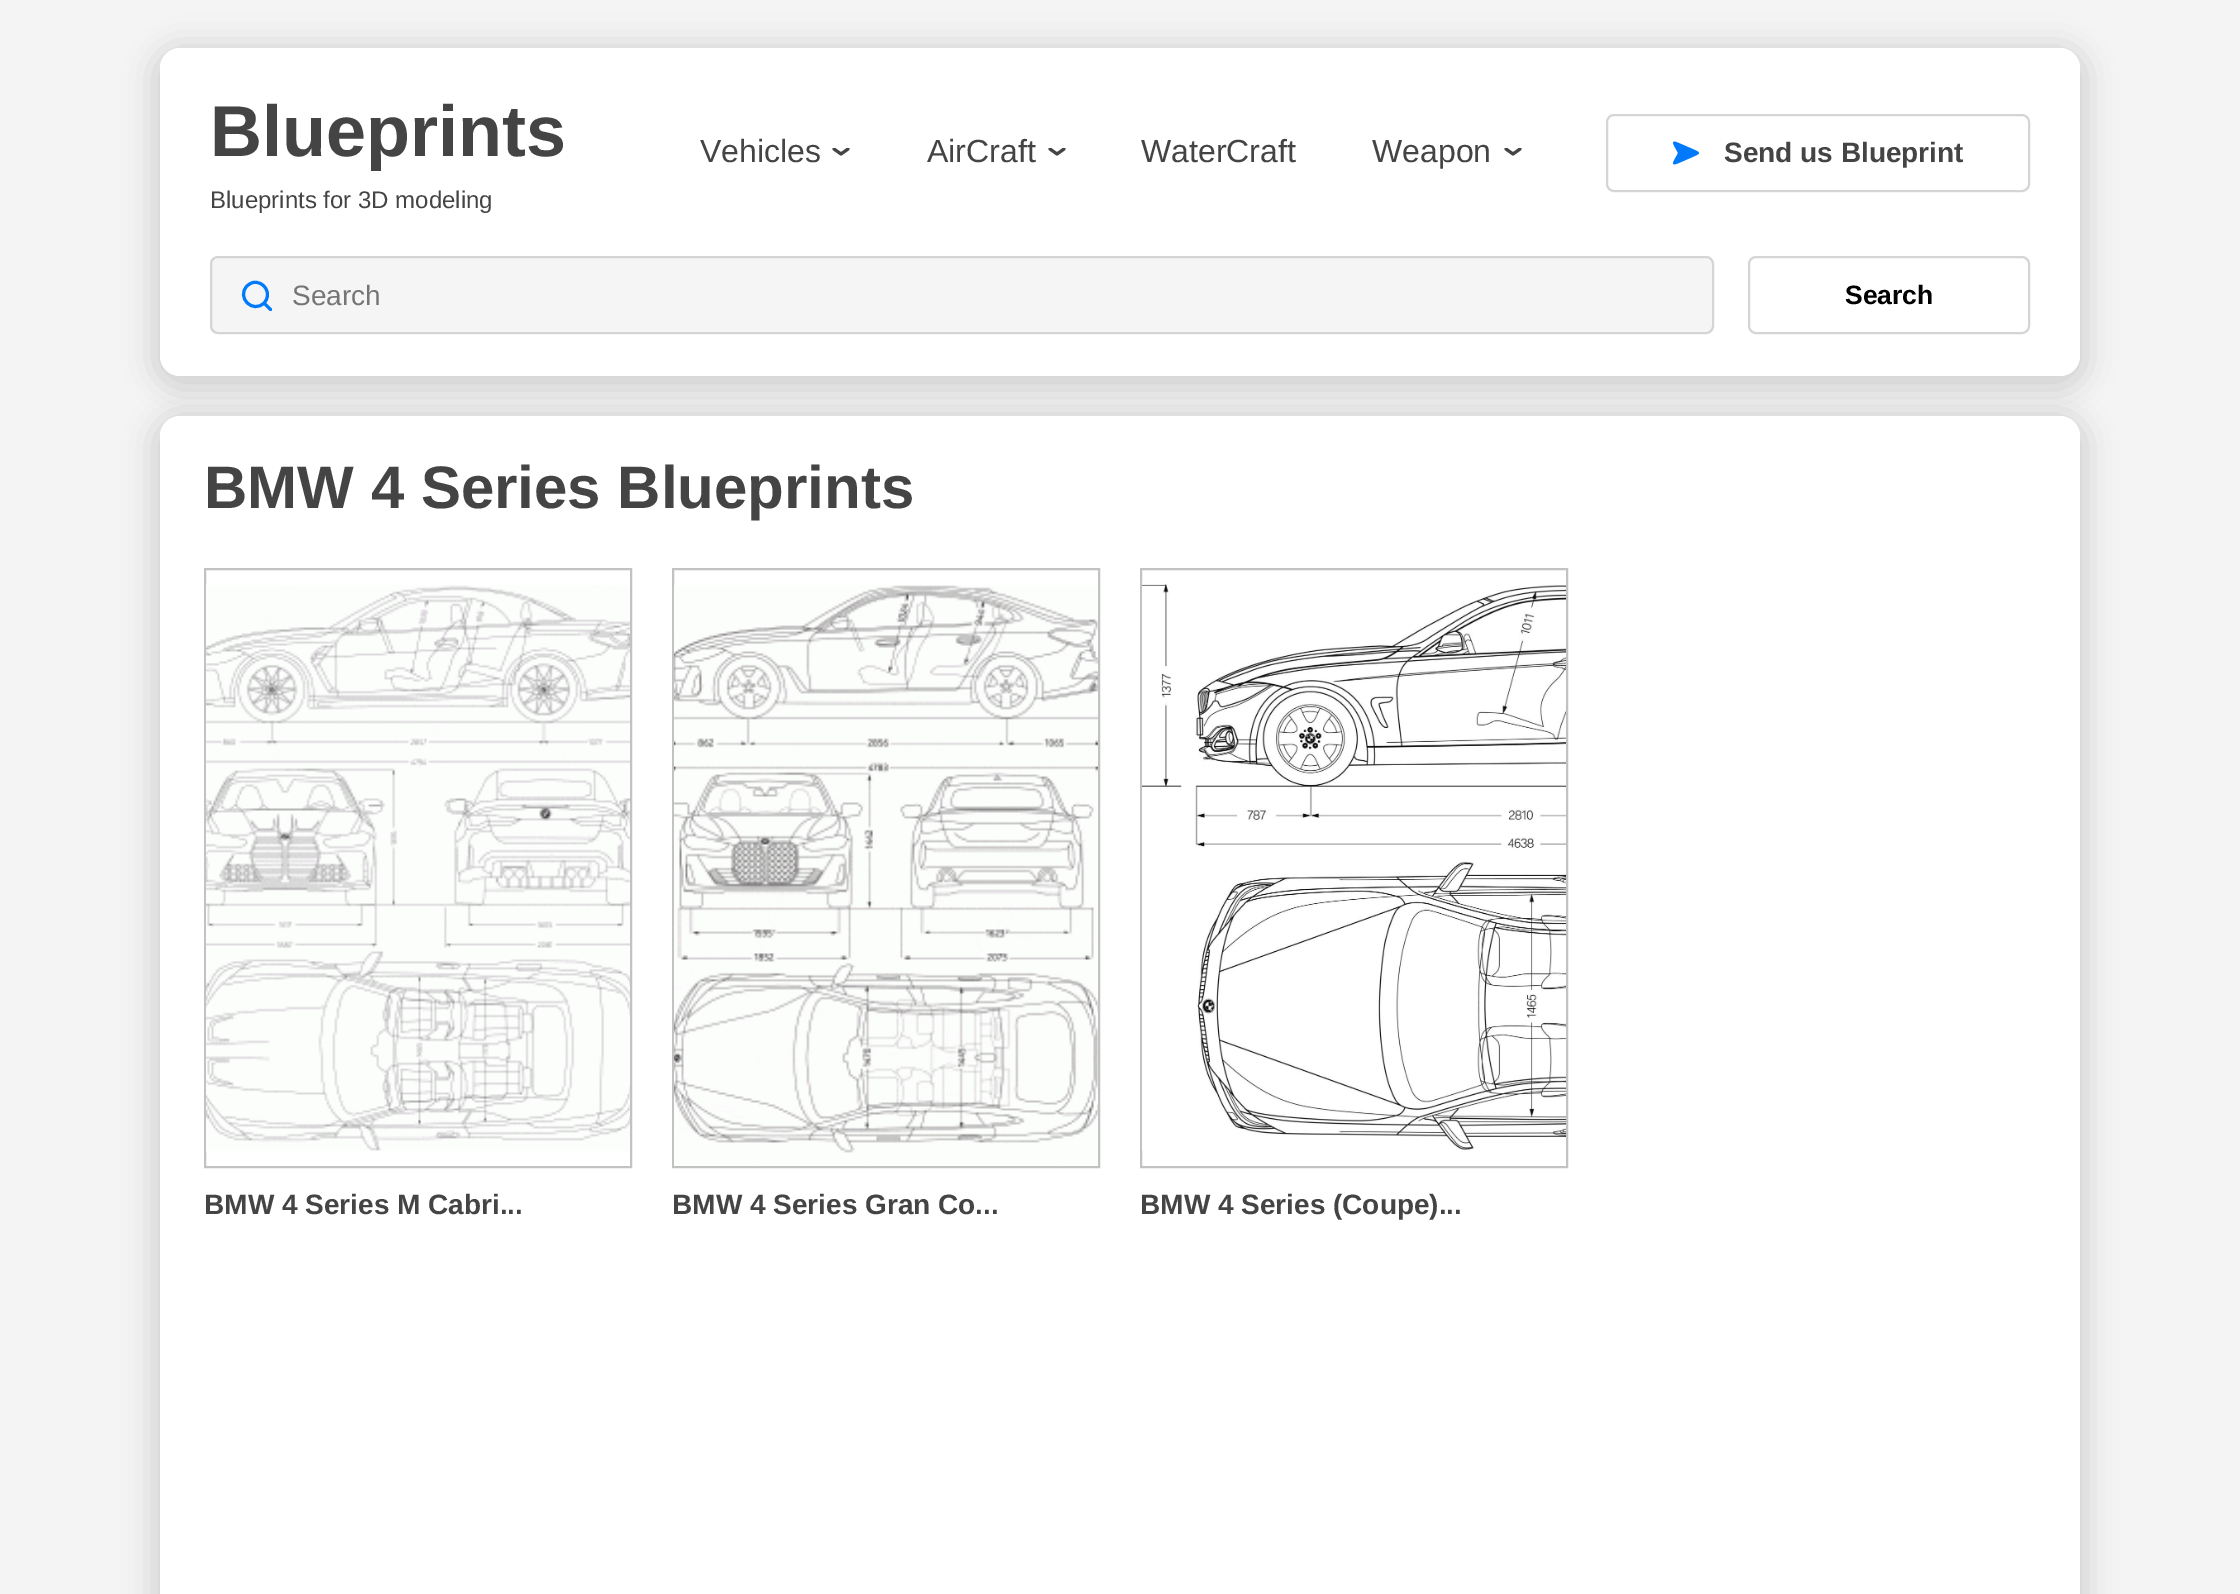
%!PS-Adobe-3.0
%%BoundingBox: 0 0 2240 1594
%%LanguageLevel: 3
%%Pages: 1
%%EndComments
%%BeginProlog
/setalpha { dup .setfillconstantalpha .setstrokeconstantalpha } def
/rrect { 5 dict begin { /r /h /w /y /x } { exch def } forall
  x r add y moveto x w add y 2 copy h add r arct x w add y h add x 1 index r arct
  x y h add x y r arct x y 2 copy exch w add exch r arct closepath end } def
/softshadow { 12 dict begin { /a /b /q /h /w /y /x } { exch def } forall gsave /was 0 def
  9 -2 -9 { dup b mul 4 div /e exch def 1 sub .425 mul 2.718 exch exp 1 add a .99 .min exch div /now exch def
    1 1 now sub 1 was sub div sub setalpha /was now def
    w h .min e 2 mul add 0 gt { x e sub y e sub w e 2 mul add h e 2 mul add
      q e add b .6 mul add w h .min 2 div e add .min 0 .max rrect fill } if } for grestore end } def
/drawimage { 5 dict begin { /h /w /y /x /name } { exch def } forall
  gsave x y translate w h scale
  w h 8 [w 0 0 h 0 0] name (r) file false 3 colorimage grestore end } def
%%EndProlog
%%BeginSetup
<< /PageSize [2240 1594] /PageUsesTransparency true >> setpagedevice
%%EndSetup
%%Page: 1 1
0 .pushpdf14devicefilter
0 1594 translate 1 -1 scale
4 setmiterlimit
0.957 setgray
0 0 2240 1594 rectfill
0 setgray
154 48 1932 340 26 15 0.15 softshadow
1 setgray
160 48 1920 328 20 rrect fill
gsave
832 148 18 10 rectclip
0.267 setgray
3 setlinewidth
1 setlinecap
1 setlinejoin
newpath 834 149 moveto 841 154 lineto 848 149 lineto stroke
grestore
gsave
1048 148 18 10 rectclip
0.267 setgray
3 setlinewidth
1 setlinecap
1 setlinejoin
newpath 1050 149 moveto 1057 154 lineto 1064 149 lineto stroke
grestore
gsave
1504 148 18 10 rectclip
0.267 setgray
3 setlinewidth
1 setlinecap
1 setlinejoin
newpath 1506 149 moveto 1513 154 lineto 1520 149 lineto stroke
grestore
0.835 setgray
2 setlinewidth
1607 115 422 76 7 rrect stroke
(images/1.raw) 1672 141 27 24 drawimage
0.961 setgray
210 256 1504 78 8 rrect fill
0 0.478 0.98 setrgbcolor
3 setlinewidth
1 setlinecap
1 setlinejoin
newpath 270.5 309.5 moveto 264 303 lineto 264 303 moveto 272.5 294.5 264.5 280.5 253 282.5 curveto 251 283 248.5 284.5 247 286 curveto 236 297.5 253 314 264 303 curveto closepath stroke
0.835 setgray
2 setlinewidth
0 setlinecap
0 setlinejoin
211 257 1502 76 7 rrect stroke
1749 257 280 76 7 rrect stroke
0 setgray
154 416 1932 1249 26 15 0.15 softshadow
1 setgray
160 416 1920 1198 20 rrect fill
0.761 setgray
205 569 426 598 rectstroke
(images/2.raw) 206 585 424 566 drawimage
673 569 426 598 rectstroke
(images/3.raw) 674 585 424 581 drawimage
1141 569 426 598 rectstroke
(images/4.raw) 1142 583 424 567 drawimage
/LiberationSans-Bold [72 0 0 -72 0 0] selectfont
0.267 setgray
210 156 moveto (Blueprints) show
/LiberationSans-Regular [24 0 0 -24 0 0] selectfont
210 208 moveto (Blueprints for 3D modeling) show
/LiberationSans-Regular [32 0 0 -32 0 0] selectfont
700 162 moveto (Vehicles) show
927 162 moveto (AirCraft) show
1141 162 moveto (WaterCraft) show
1372 162 moveto (Weapon) show
/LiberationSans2-Bold [28 0 0 -28 0 0] selectfont
1724 162 moveto (Send us Blueprint) show
/LiberationSans2-Regular [28 0 0 -28 0 0] selectfont
0.459 setgray
292 305 moveto (Search) show
/LiberationSans2-Bold [26.5 0 0 -26.5 0 0] selectfont
0 setgray
1845 304 moveto (Search) show
/LiberationSans-Bold [60 0 0 -60 0 0] selectfont
0.267 setgray
204 508 moveto (BMW 4 Series Blueprints) show
/LiberationSans2-Bold [28 0 0 -28 0 0] selectfont
204 1214 moveto (BMW 4 Series M Cabri...) show
672 1214 moveto (BMW 4 Series Gran Co...) show
1140 1214 moveto (BMW 4 Series \(Coupe\)...) show
.poppdf14devicefilter showpage
%%EOF
